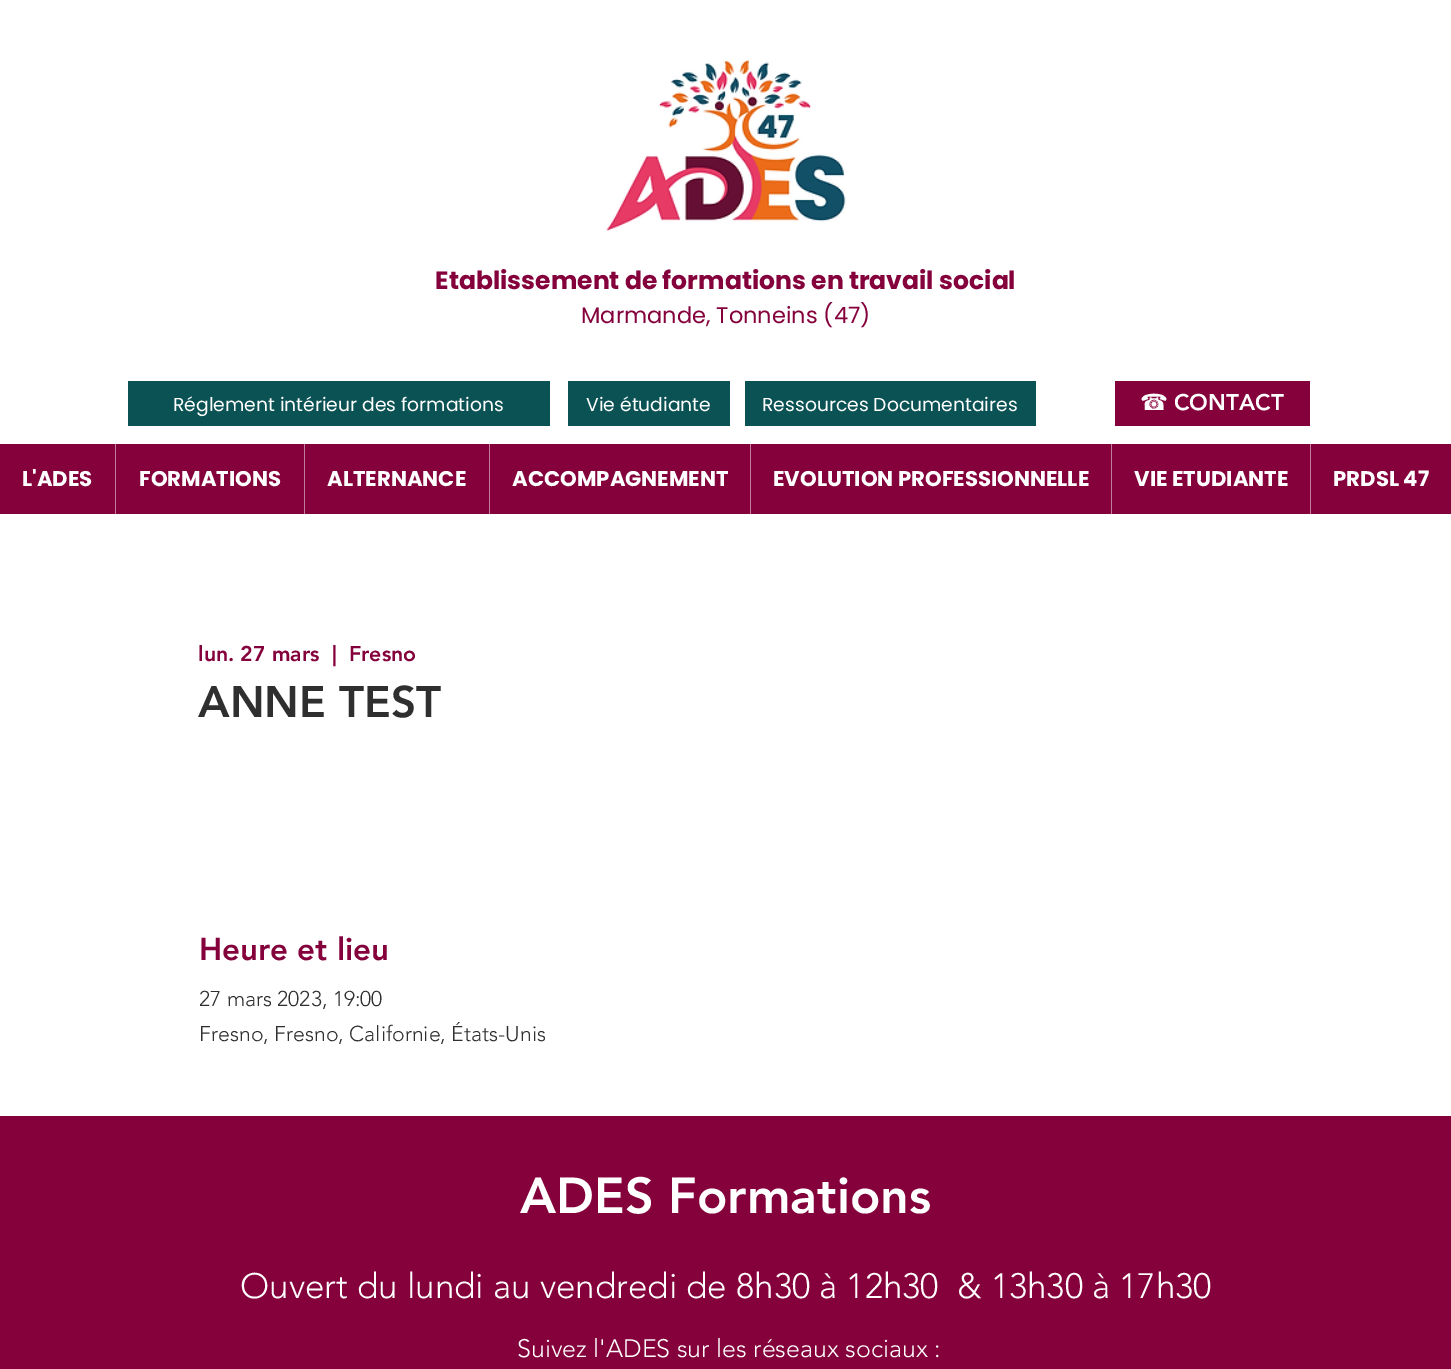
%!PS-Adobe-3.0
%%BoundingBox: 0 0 1451 1369
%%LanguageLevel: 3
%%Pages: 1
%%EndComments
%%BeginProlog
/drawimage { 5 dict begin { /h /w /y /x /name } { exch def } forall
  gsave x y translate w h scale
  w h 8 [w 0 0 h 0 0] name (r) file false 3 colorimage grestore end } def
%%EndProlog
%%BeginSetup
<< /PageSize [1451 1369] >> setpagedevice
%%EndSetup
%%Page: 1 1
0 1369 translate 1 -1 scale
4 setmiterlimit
1 setgray
0 0 1451 1369 rectfill
(images/1.raw) 606 59 240 173 drawimage
0.043 0.322 0.329 setrgbcolor
128 381 422 45 rectfill
568 381 162 45 rectfill
745 381 291 45 rectfill
0.522 0.004 0.231 setrgbcolor
1115 381 195 45 rectfill
0 444 1451 70 rectfill
0.757 0.49 0.608 setrgbcolor
115 444 1 70 rectfill
304 444 1 70 rectfill
489 444 1 70 rectfill
750 444 1 70 rectfill
1111 444 1 70 rectfill
1310 444 1 70 rectfill
0.522 0.004 0.231 setrgbcolor
0 1116 1451 253 rectfill
/Poppins-Bold [25 0 0 -25 0 0] selectfont
435 289 moveto (Etablissement de formations en travail social) show
/Poppins-Regular [22.5 0 0 -22.5 0 0] selectfont
581 323 moveto (Marmande, Tonneins \(47\)) show
/Poppins-Regular [18.75 0 0 -18.75 0 0] selectfont
1 setgray
173 411 moveto (Réglement intérieur des formations) show
586 411 moveto (Vie étudiante) show
762 411 moveto (Ressources Documentaires) show
/DejaVuSans-Regular [22.5 0 0 -22.5 0 0] selectfont
1140 410 moveto (☎) show
/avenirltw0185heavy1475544-Black [22.5 0 0 -22.5 0 0] selectfont
1174 410 moveto (CONTACT) show
/Poppins-Bold [21.25 0 0 -21.25 0 0] selectfont
22 486 moveto (L'ADES) show
139 486 moveto (FORMATIONS) show
327 486 moveto (ALTERNANCE) show
512 486 moveto (ACCOMPAGNEMENT) show
773 486 moveto (EVOLUTION PROFESSIONNELLE) show
1134 486 moveto (VIE ETUDIANTE) show
1333 486 moveto (PRDSL 47) show
/avenirltw0185heavy1475544-Black [21.25 0 0 -21.25 0 0] selectfont
0.522 0.004 0.231 setrgbcolor
198 661 moveto (lun. 27 mars) show
332 661 moveto (|) show
349 661 moveto (Fresno) show
/avenirltw0185heavy1475544-Black [43.75 0 0 -43.75 0 0] selectfont
0.184 0.184 0.188 setrgbcolor
198 717 moveto (ANNE TEST) show
/avenirltw0185heavy1475544-Black [31.25 0 0 -31.25 0 0] selectfont
0.522 0.004 0.231 setrgbcolor
199 960 moveto (Heure et lieu) show
/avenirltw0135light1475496-Light [21.25 0 0 -21.25 0 0] selectfont
0.184 0.184 0.188 setrgbcolor
199 1006 moveto (27 mars 2023, 19:00) show
199 1041 moveto (Fresno, Fresno, Californie, États-Unis) show
/avenirltw0185heavy1475544-Black [50 0 0 -50 0 0] selectfont
1 setgray
520 1213 moveto (ADES Formations) show
/avenirltw0135light1475496-Light [35 0 0 -35 0 0] selectfont
240 1298 moveto (Ouvert du lundi au vendredi de 8h30 à 12h30  & 13h30 à 17h30) show
/avenirltw0135light1475496-Light [25 0 0 -25 0 0] selectfont
517 1357 moveto (Suivez l'ADES sur les réseaux sociaux :) show
showpage
%%EOF
